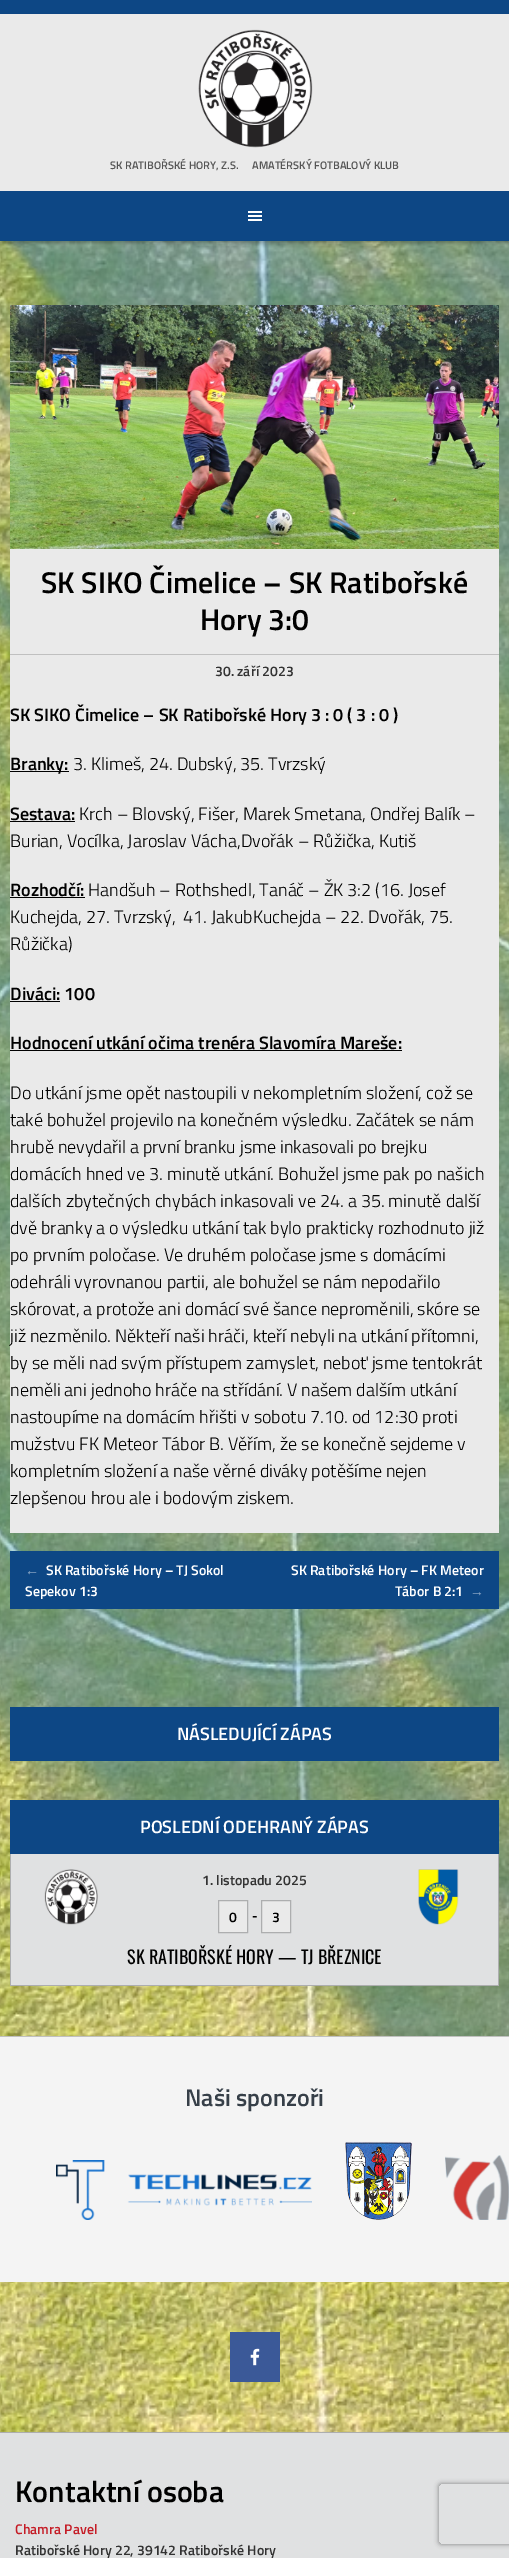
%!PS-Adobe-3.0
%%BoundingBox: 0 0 509 2558
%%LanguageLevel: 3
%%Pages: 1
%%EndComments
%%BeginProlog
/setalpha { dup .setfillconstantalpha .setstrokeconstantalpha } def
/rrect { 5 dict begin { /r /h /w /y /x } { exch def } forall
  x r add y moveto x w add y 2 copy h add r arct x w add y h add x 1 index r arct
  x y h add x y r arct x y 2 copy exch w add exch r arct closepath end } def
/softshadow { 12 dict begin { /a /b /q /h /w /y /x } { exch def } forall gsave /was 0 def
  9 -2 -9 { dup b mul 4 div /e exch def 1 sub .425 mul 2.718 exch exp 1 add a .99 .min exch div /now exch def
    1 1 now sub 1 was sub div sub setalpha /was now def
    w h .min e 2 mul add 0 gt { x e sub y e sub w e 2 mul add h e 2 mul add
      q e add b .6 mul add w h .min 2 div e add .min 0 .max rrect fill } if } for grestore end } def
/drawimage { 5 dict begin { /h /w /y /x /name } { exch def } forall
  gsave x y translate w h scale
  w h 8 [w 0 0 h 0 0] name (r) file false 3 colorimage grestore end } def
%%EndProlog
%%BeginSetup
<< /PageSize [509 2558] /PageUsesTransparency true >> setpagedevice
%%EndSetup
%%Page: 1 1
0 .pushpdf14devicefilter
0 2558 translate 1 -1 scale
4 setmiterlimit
1 setgray
0 0 509 2558 rectfill
(images/1.raw) 0 241 509 2191 drawimage
0.051 0.278 0.522 setrgbcolor
0 0 509 14 rectfill
0 setgray
0 16 509 227 0 1.5 0.25 softshadow
0.918 setgray
0 14 509 177 rectfill
(images/2.raw) 198 29 115 119 drawimage
0.051 0.278 0.522 setrgbcolor
0 191 509 50 rectfill
(images/3.raw) 248 211 14 10 drawimage
0.918 setgray
10 549 489 984 rectfill
(images/4.raw) 10 305 489 244 drawimage
0.753 setgray
10 654 489 1 rectfill
0 setgray
10 771 59 1 rectfill
10 821 65 1 rectfill
10 897 75 1 rectfill
10 1001 50 1 rectfill
10 1050 392 1 rectfill
0.051 0.278 0.522 setrgbcolor
10 1551 489 58 rectfill
10 1707 489 54 rectfill
0.678 0.682 0.686 setrgbcolor
498 1853 1 133 rectfill
10 1985 489 1 rectfill
10 1853 1 133 rectfill
0.051 0.278 0.522 setrgbcolor
10 1800 489 54 rectfill
0.878 0.882 0.886 setrgbcolor
11 1854 487 131 rectfill
(images/5.raw) 44 1869 54 56 drawimage
(images/6.raw) 418 1869 41 56 drawimage
0.918 setgray
newpath 218.5 1900.5 moveto 247.5 1900.5 lineto 247.5 1932.5 lineto 218.5 1932.5 lineto closepath gsave fill grestore
0.678 0.682 0.686 setrgbcolor
stroke
0.918 setgray
newpath 261.5 1900.5 moveto 290.5 1900.5 lineto 290.5 1932.5 lineto 261.5 1932.5 lineto closepath gsave fill grestore
0.678 0.682 0.686 setrgbcolor
stroke
0.957 setgray
0 2037 509 245 rectfill
0.753 setgray
0 2036 509 1 rectfill
(images/7.raw) 56 2160 256 60 drawimage
(images/8.raw) 345 2142 67 78 drawimage
(images/9.raw) 445 2155 64 65 drawimage
0.231 0.349 0.596 setrgbcolor
230 2332 50 50 rectfill
(images/10.raw) 250 2348 10 18 drawimage
0.878 0.882 0.886 setrgbcolor
0 2433 509 125 rectfill
0.678 0.682 0.686 setrgbcolor
0 2432 509 1 rectfill
gsave
newpath 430 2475 moveto 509 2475 lineto 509 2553 lineto 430 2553 lineto closepath 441 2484 moveto 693 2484 lineto 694 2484 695 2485 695 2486 curveto 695 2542 lineto 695 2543 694 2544 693 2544 curveto 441 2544 lineto 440 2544 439 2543 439 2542 curveto 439 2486 lineto 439 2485 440 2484 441 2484 curveto closepath eoclip newpath
0.502 setgray
439 2484 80 60 2 2.5 1 softshadow
grestore
/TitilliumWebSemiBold-SemiBold [11 0 0 -11 0 0] selectfont
0.333 setgray
110 169 moveto (SK RATIBOŘSKÉ HORY, Z.S.) show
252 169 moveto (AMATÉRSKÝ FOTBALOVÝ KLUB) show
/TitilliumWebSemiBold-SemiBold [30 0 0 -30 0 0] selectfont
0 setgray
41 593 moveto (SK SIKO Čimelice – SK Ratibořské) show
200 630 moveto (Hory 3:0) show
/TitilliumWebSemiBold-SemiBold [14 0 0 -14 0 0] selectfont
0.2 setgray
215 676 moveto (30. září 2023) show
/TitilliumWebSemiBold-SemiBold [18 0 0 -18 0 0] selectfont
0 setgray
10 721 moveto (SK SIKO Čimelice – SK Ratibořské Hory 3 : 0 \( 3 : 0 \)) show
10 770 moveto (Branky:) show
/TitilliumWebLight-Light [18 0 0 -18 0 0] selectfont
73 770 moveto (3. Klimeš, 24. Dubský, 35. Tvrzský) show
/TitilliumWebSemiBold-SemiBold [18 0 0 -18 0 0] selectfont
10 820 moveto (Sestava:) show
/TitilliumWebLight-Light [18 0 0 -18 0 0] selectfont
79 820 moveto (Krch – Blovský, Fišer, Marek Smetana, Ondřej Balík –) show
10 847 moveto (Burian, Vocílka, Jaroslav Vácha,Dvořák – Růžička, Kutiš) show
/TitilliumWebSemiBold-SemiBold [18 0 0 -18 0 0] selectfont
10 896 moveto (Rozhodčí:) show
/TitilliumWebLight-Light [18 0 0 -18 0 0] selectfont
88 896 moveto (Handšuh – Rothshedl, Tanáč – ŽK 3:2 \(16. Josef) show
10 923 moveto (Kuchejda, 27. Tvrzský,  41. JakubKuchejda – 22. Dvořák, 75.) show
10 950 moveto (Růžička\)) show
/TitilliumWebSemiBold-SemiBold [18 0 0 -18 0 0] selectfont
10 1000 moveto (Diváci: 100) show
10 1049 moveto (Hodnocení utkání očima trenéra Slavomíra Mareše:) show
/TitilliumWebLight-Light [18 0 0 -18 0 0] selectfont
10 1099 moveto (Do utkání jsme opět nastoupili v nekompletním složení, což se) show
10 1126 moveto (také bohužel projevilo na konečném výsledku. Začátek se nám) show
10 1153 moveto (hrubě nevydařil a první branku jsme inkasovali po brejku) show
10 1180 moveto (domácích hned ve 3. minutě utkání. Bohužel jsme pak po našich) show
10 1207 moveto (dalších zbytečných chybách inkasovali ve 24. a 35. minutě další) show
10 1234 moveto (dvě branky a o výsledku utkání tak bylo prakticky rozhodnuto již) show
10 1261 moveto (po prvním poločase. Ve druhém poločase jsme s domácími) show
10 1288 moveto (odehráli vyrovnanou partii, ale bohužel se nám nepodařilo) show
10 1315 moveto (skórovat, a protože ani domácí své šance neproměnili, skóre se) show
10 1342 moveto (již nezměnilo. Někteří naši hráči, kteří nebyli na utkání přítomni,) show
10 1369 moveto (by se měli nad svým přístupem zamyslet, neboť jsme tentokrát) show
10 1396 moveto (neměli ani jednoho hráče na střídání. V našem dalším utkání) show
10 1423 moveto (nastoupíme na domácím hřišti v sobotu 7.10. od 12:30 proti) show
10 1450 moveto (mužstvu FK Meteor Tábor B. Věřím, že se konečně sejdeme v) show
10 1477 moveto (kompletním složení a naše věrné diváky potěšíme nejen) show
10 1504 moveto (zlepšenou hrou ale i bodovým ziskem.) show
/LiberationSans-Bold [14 0 0 -14 0 0] selectfont
0.525 0.639 0.761 setrgbcolor
25 1575 moveto (←) show
/TitilliumWebSemiBold-SemiBold [14 0 0 -14 0 0] selectfont
1 setgray
46 1575 moveto (SK Ratibořské Hory – TJ Sokol) show
25 1596 moveto (Sepekov 1:3) show
291 1575 moveto (SK Ratibořské Hory – FK Meteor) show
395 1596 moveto (Tábor B 2:1) show
/LiberationSans-Bold [14 0 0 -14 0 0] selectfont
0.525 0.639 0.761 setrgbcolor
470 1596 moveto (→) show
/TitilliumWebSemiBold-SemiBold [18 0 0 -18 0 0] selectfont
1 setgray
177 1740 moveto (NÁSLEDUJÍCÍ ZÁPAS) show
140 1833 moveto (POSLEDNÍ ODEHRANÝ ZÁPAS) show
/TitilliumWebSemiBold-SemiBold [14 0 0 -14 0 0] selectfont
0.2 setgray
202 1885 moveto (1. listopadu 2025) show
0 setgray
229 1922 moveto (0) show
/Oswald-Regular [18 0 0 -18 0 0] selectfont
252 1922 moveto (-) show
/TitilliumWebSemiBold-SemiBold [14 0 0 -14 0 0] selectfont
272 1922 moveto (3) show
/Oswald-Regular [18 0 0 -18 0 0] selectfont
127 1964 moveto (SK RATIBOŘSKÉ HORY — TJ BŘEZNICE) show
/TitilliumWebSemiBold-SemiBold [24 0 0 -24 0 0] selectfont
0.212 0.247 0.282 setrgbcolor
185 2106 moveto (Naši sponzoři) show
/TitilliumWebSemiBold-SemiBold [30 0 0 -30 0 0] selectfont
0 setgray
15 2502 moveto (Kontaktní osoba) show
/TitilliumWebSemiBold-SemiBold [14 0 0 -14 0 0] selectfont
0.773 0.114 0.153 setrgbcolor
15 2534 moveto (Chamra Pavel) show
0.2 setgray
15 2555 moveto (Ratibořské Hory 22, 39142 Ratibořské Hory) show
.poppdf14devicefilter showpage
%%EOF
